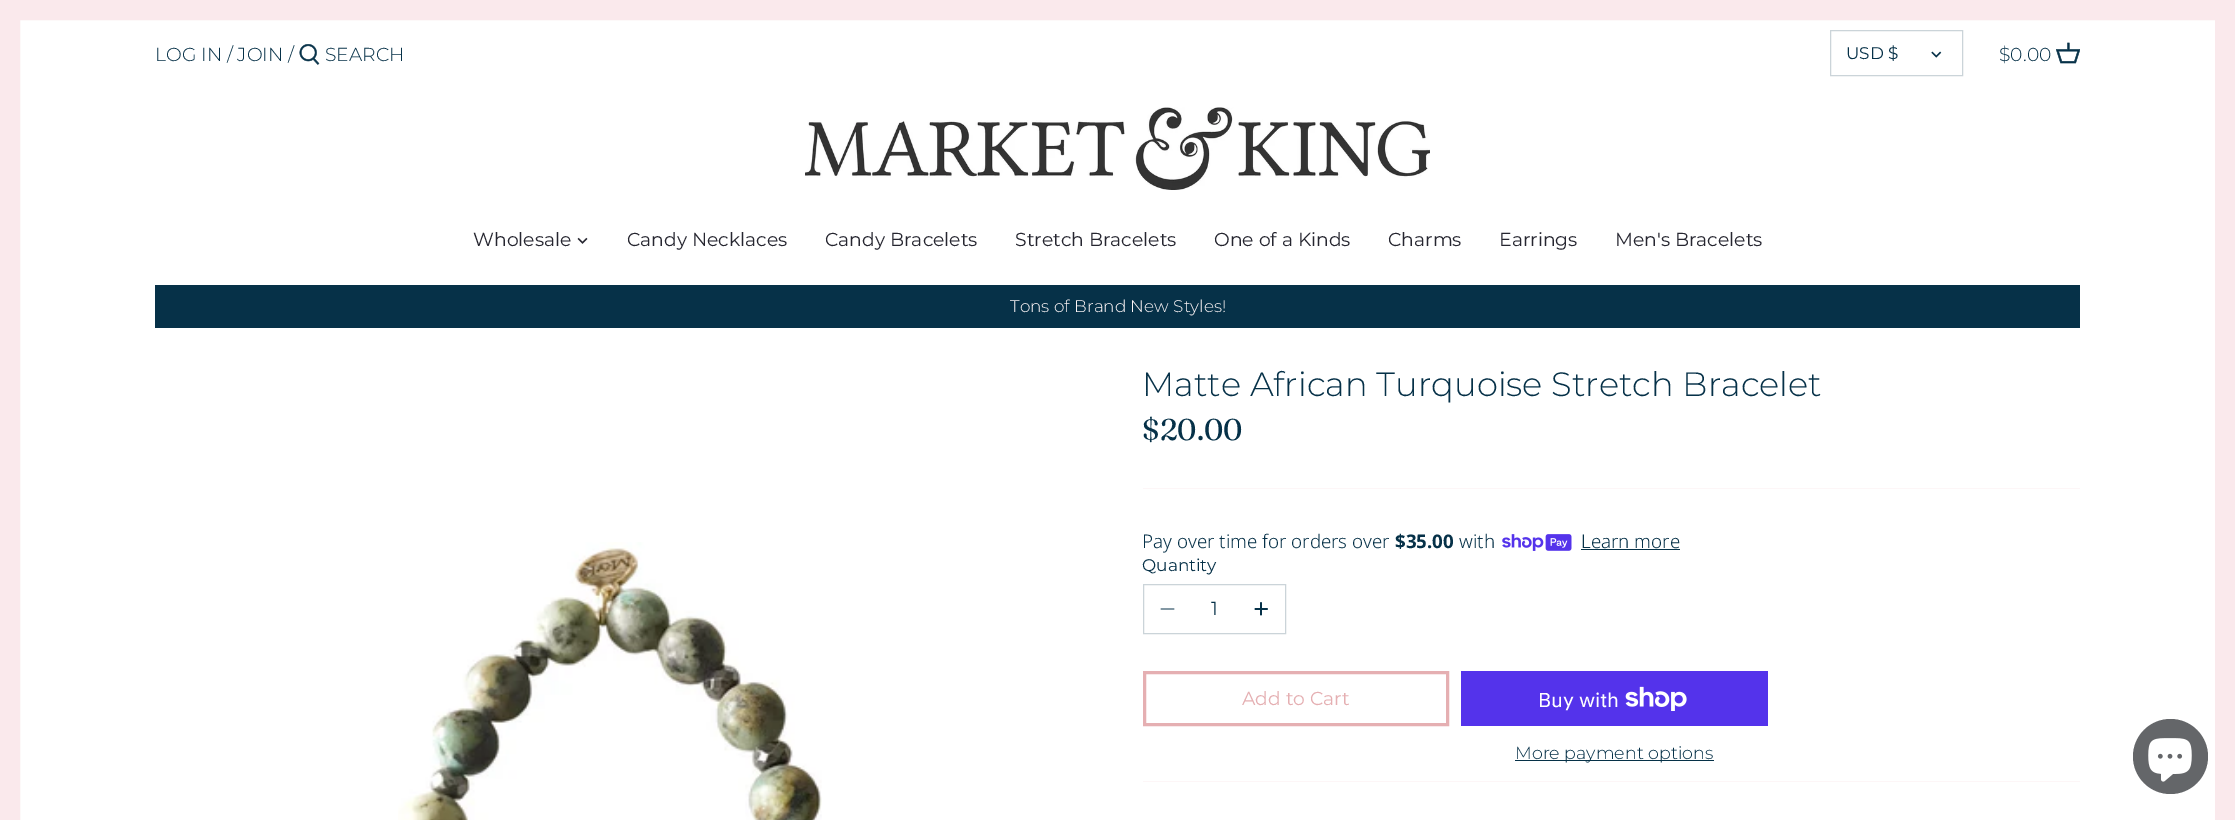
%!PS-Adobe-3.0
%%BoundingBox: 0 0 2235 820
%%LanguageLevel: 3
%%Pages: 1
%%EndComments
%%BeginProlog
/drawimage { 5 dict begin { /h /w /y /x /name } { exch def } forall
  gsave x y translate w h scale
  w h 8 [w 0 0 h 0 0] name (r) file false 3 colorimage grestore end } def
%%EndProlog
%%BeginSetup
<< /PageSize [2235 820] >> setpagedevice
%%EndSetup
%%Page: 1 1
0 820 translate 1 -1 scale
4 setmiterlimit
1 setgray
0 0 2235 820 rectfill
0.98 0.914 0.925 setrgbcolor
20 setlinewidth
10 10 2215 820 rectstroke
(images/1.raw) 299 44 21 21 drawimage
0.796 0.831 0.851 setrgbcolor
1 setlinewidth
1830.5 30.5 132 45 rectstroke
(images/2.raw) 1931 51 11 7 drawimage
(images/3.raw) 2056 42 24 22 drawimage
(images/4.raw) 805 107 625 83 drawimage
(images/5.raw) 577 237 11 7 drawimage
0.024 0.192 0.282 setrgbcolor
155 285 1925 43 rectfill
(images/6.raw) 398 542 424 278 drawimage
0.992 0.965 0.969 setrgbcolor
1143 488 937 1 rectfill
1143 781 937 1 rectfill
(images/7.raw) 1502 534 70 17 drawimage
0.024 0.192 0.282 setrgbcolor
1581 549 99 1 rectfill
0.796 0.831 0.851 setrgbcolor
1143.5 584.5 142 49 rectstroke
0.514 0.596 0.643 setrgbcolor
1.7 setlinewidth
1 setlinecap
1 setlinejoin
newpath 1161.5 609 moveto 1173.5 609 lineto stroke
0.024 0.192 0.282 setrgbcolor
newpath 1261 603 moveto 1261 614.5 lineto 1255.5 609 moveto 1267 609 lineto stroke
0.898 0.686 0.698 setrgbcolor
3 setlinewidth
0 setlinecap
0 setlinejoin
1144.5 672.5 303 52 rectstroke
0.329 0.2 0.922 setrgbcolor
1461 671 307 55 rectfill
(images/8.raw) 1625 686 62 25 drawimage
0.024 0.192 0.282 setrgbcolor
1515 760 199 1 rectfill
0.392 0.4 0.412 setrgbcolor
newpath 2170.5 756.5 37.5 0 360 arc closepath fill
(images/9.raw) 2148 738 44 44 drawimage
/Montserrat-Light [18.75 0 0 -18.75 0 0] selectfont
0.024 0.192 0.282 setrgbcolor
155 61 moveto (LOG IN / JOIN /) show
325 61 moveto (SEARCH) show
/Montserrat-Regular [16.9 0 0 -16.9 0 0] selectfont
1846 59 moveto (USD $) show
/Montserrat-Light [18.75 0 0 -18.75 0 0] selectfont
1999 61 moveto ($0.00) show
/Montserrat-Regular [18.75 0 0 -18.75 0 0] selectfont
0.149 0.149 0.188 setrgbcolor
473 246 moveto (Wholesale) show
627 246 moveto (Candy Necklaces) show
825 246 moveto (Candy Bracelets) show
1015 246 moveto (Stretch Bracelets) show
1214 246 moveto (One of a Kinds) show
1388 246 moveto (Charms) show
1499 246 moveto (Earrings) show
1615 246 moveto (Men's Bracelets) show
/Montserrat-Light [16.9 0 0 -16.9 0 0] selectfont
0.992 0.965 0.969 setrgbcolor
1010 312 moveto (Tons of Brand New Styles!) show
/Montserrat-Light [33.75 0 0 -33.75 0 0] selectfont
0.024 0.192 0.282 setrgbcolor
1142 396 moveto (Matte African Turquoise Stretch Bracelet) show
/Fraunces-Regular [30 0 0 -30 0 0] selectfont
1142 440 moveto ($20.00) show
/NotoSans-Light [18.75 0 0 -18.75 0 0] selectfont
1142 548 moveto (Pay over time for orders over) show
/NotoSans-Bold [18.75 0 0 -18.75 0 0] selectfont
1395 548 moveto ($35.00) show
/NotoSans-Light [18.75 0 0 -18.75 0 0] selectfont
1459 548 moveto (with) show
1581 548 moveto (Learn more) show
/Montserrat-Regular [16.9 0 0 -16.9 0 0] selectfont
1142 571 moveto (Quantity) show
/Montserrat-Regular [18.75 0 0 -18.75 0 0] selectfont
1211 615 moveto (1) show
0.898 0.686 0.698 setrgbcolor
1242 705 moveto (Add to Cart) show
/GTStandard-Regular [20 0 0 -20 0 0] selectfont
1 setgray
1538 707 moveto (Buy with) show
/Montserrat-Light [17.5 0 0 -17.5 0 0] selectfont
0.024 0.192 0.282 setrgbcolor
1515 759 moveto (More payment options) show
showpage
%%EOF
